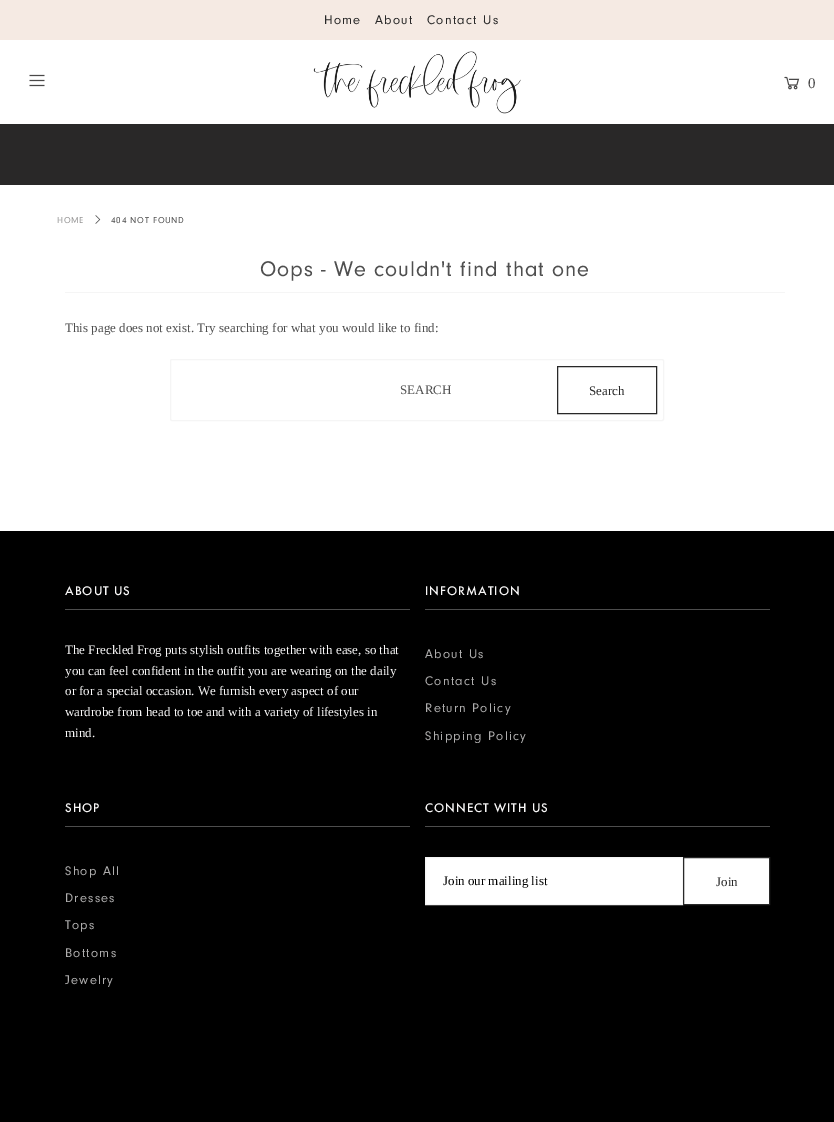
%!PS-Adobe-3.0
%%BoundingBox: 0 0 834 1122
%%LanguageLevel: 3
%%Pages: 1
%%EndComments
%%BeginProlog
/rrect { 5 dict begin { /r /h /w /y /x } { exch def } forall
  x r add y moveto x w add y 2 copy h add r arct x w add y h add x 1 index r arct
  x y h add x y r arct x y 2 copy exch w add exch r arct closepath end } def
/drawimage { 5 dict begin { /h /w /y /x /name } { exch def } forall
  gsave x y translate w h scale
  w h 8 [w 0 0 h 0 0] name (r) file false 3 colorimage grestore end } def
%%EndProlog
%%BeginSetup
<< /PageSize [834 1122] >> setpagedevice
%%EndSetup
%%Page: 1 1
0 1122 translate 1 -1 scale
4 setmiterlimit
1 setgray
0 0 834 1122 rectfill
0.961 0.918 0.89 setrgbcolor
0 0 834 40 rectfill
(images/1.raw) 29 74 16 13 drawimage
(images/2.raw) 313 51 208 63 drawimage
(images/3.raw) 784 76 16 14 drawimage
0.161 0.157 0.157 setrgbcolor
0 124 834 61 rectfill
(images/4.raw) 95 215 6 9 drawimage
0.961 setgray
65 292 720 1 rectfill
170.5 359.5 493 61 1.5 rrect stroke
0.157 setgray
557.5 366.5 99 47 rectstroke
0 setgray
0 531 834 591 rectfill
0.302 setgray
65 609 345 1 rectfill
425 609 345 1 rectfill
65 826 345 1 rectfill
425 826 345 1 rectfill
1 setgray
newpath 425.5 857.5 moveto 682.5 857.5 lineto 682.5 904.5 lineto 425.5 904.5 lineto closepath gsave fill grestore
0.961 setgray
stroke
1 setgray
newpath 683.5 857.5 moveto 769.5 857.5 lineto 769.5 904.5 lineto 683.5 904.5 lineto closepath gsave fill grestore
0.157 setgray
stroke
/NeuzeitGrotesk-Regular [13 0 0 -13 0 0] selectfont
324 24 moveto 1.25 0 (Home) ashow
375 24 moveto 1.25 0 (About) ashow
427 24 moveto 1.25 0 (Contact Us) ashow
/LiberationSerif-Regular [15 0 0 -15 0 0] selectfont
0.286 0.282 0.282 setrgbcolor
808 88 moveto (0) show
/NeuzeitGrotesk-Regular [9 0 0 -9 0 0] selectfont
0.58 0.576 0.576 setrgbcolor
57 223 moveto 0.75 0 (HOME) ashow
0.31 setgray
111 223 moveto 0.75 0 (404 NOT FOUND) ashow
/NeuzeitGrotesk-Regular [22 0 0 -22 0 0] selectfont
260 276 moveto 0.9 0 (Oops - We couldn't find that one) ashow
/LiberationSerif-Regular [13 0 0 -13 0 0] selectfont
65 332 moveto (This page does not exist. Try searching for what you would like to find:) show
400 394 moveto (SEARCH) show
0.157 setgray
589 395 moveto (Search) show
/FuturaPT-Medium [13 0 0 -13 0 0] selectfont
0.973 0.969 0.969 setrgbcolor
65 595 moveto 1 0 (ABOUT US) ashow
/LiberationSerif-Regular [13 0 0 -13 0 0] selectfont
65 654 moveto (The Freckled Frog puts stylish outfits together with ease, so that) show
65 675 moveto (you can feel confident in the outfit you are wearing on the daily) show
65 695 moveto (or for a special occasion. We furnish every aspect of our) show
65 716 moveto (wardrobe from head to toe and with a variety of lifestyles in) show
65 737 moveto (mind.) show
/FuturaPT-Medium [13 0 0 -13 0 0] selectfont
425 595 moveto 1 0 (INFORMATION) ashow
/NeuzeitGrotesk-Regular [13 0 0 -13 0 0] selectfont
0.682 0.678 0.678 setrgbcolor
425 658 moveto 1.25 0 (About Us) ashow
425 685 moveto 1.25 0 (Contact Us) ashow
425 712 moveto 1.25 0 (Return Policy) ashow
425 740 moveto 1.25 0 (Shipping Policy) ashow
/FuturaPT-Medium [13 0 0 -13 0 0] selectfont
0.973 0.969 0.969 setrgbcolor
65 812 moveto 1 0 (SHOP) ashow
/NeuzeitGrotesk-Regular [13 0 0 -13 0 0] selectfont
0.682 0.678 0.678 setrgbcolor
65 875 moveto 1.25 0 (Shop All) ashow
65 902 moveto 1.25 0 (Dresses) ashow
65 929 moveto 1.25 0 (Tops) ashow
65 957 moveto 1.25 0 (Bottoms) ashow
65 984 moveto 1.25 0 (Jewelry) ashow
/FuturaPT-Medium [13 0 0 -13 0 0] selectfont
0.973 0.969 0.969 setrgbcolor
425 812 moveto 1 0 (CONNECT WITH US) ashow
/LiberationSerif-Regular [13 0 0 -13 0 0] selectfont
0 setgray
443 885 moveto (Join our mailing list) show
0.157 setgray
716 886 moveto (Join) show
showpage
%%EOF
